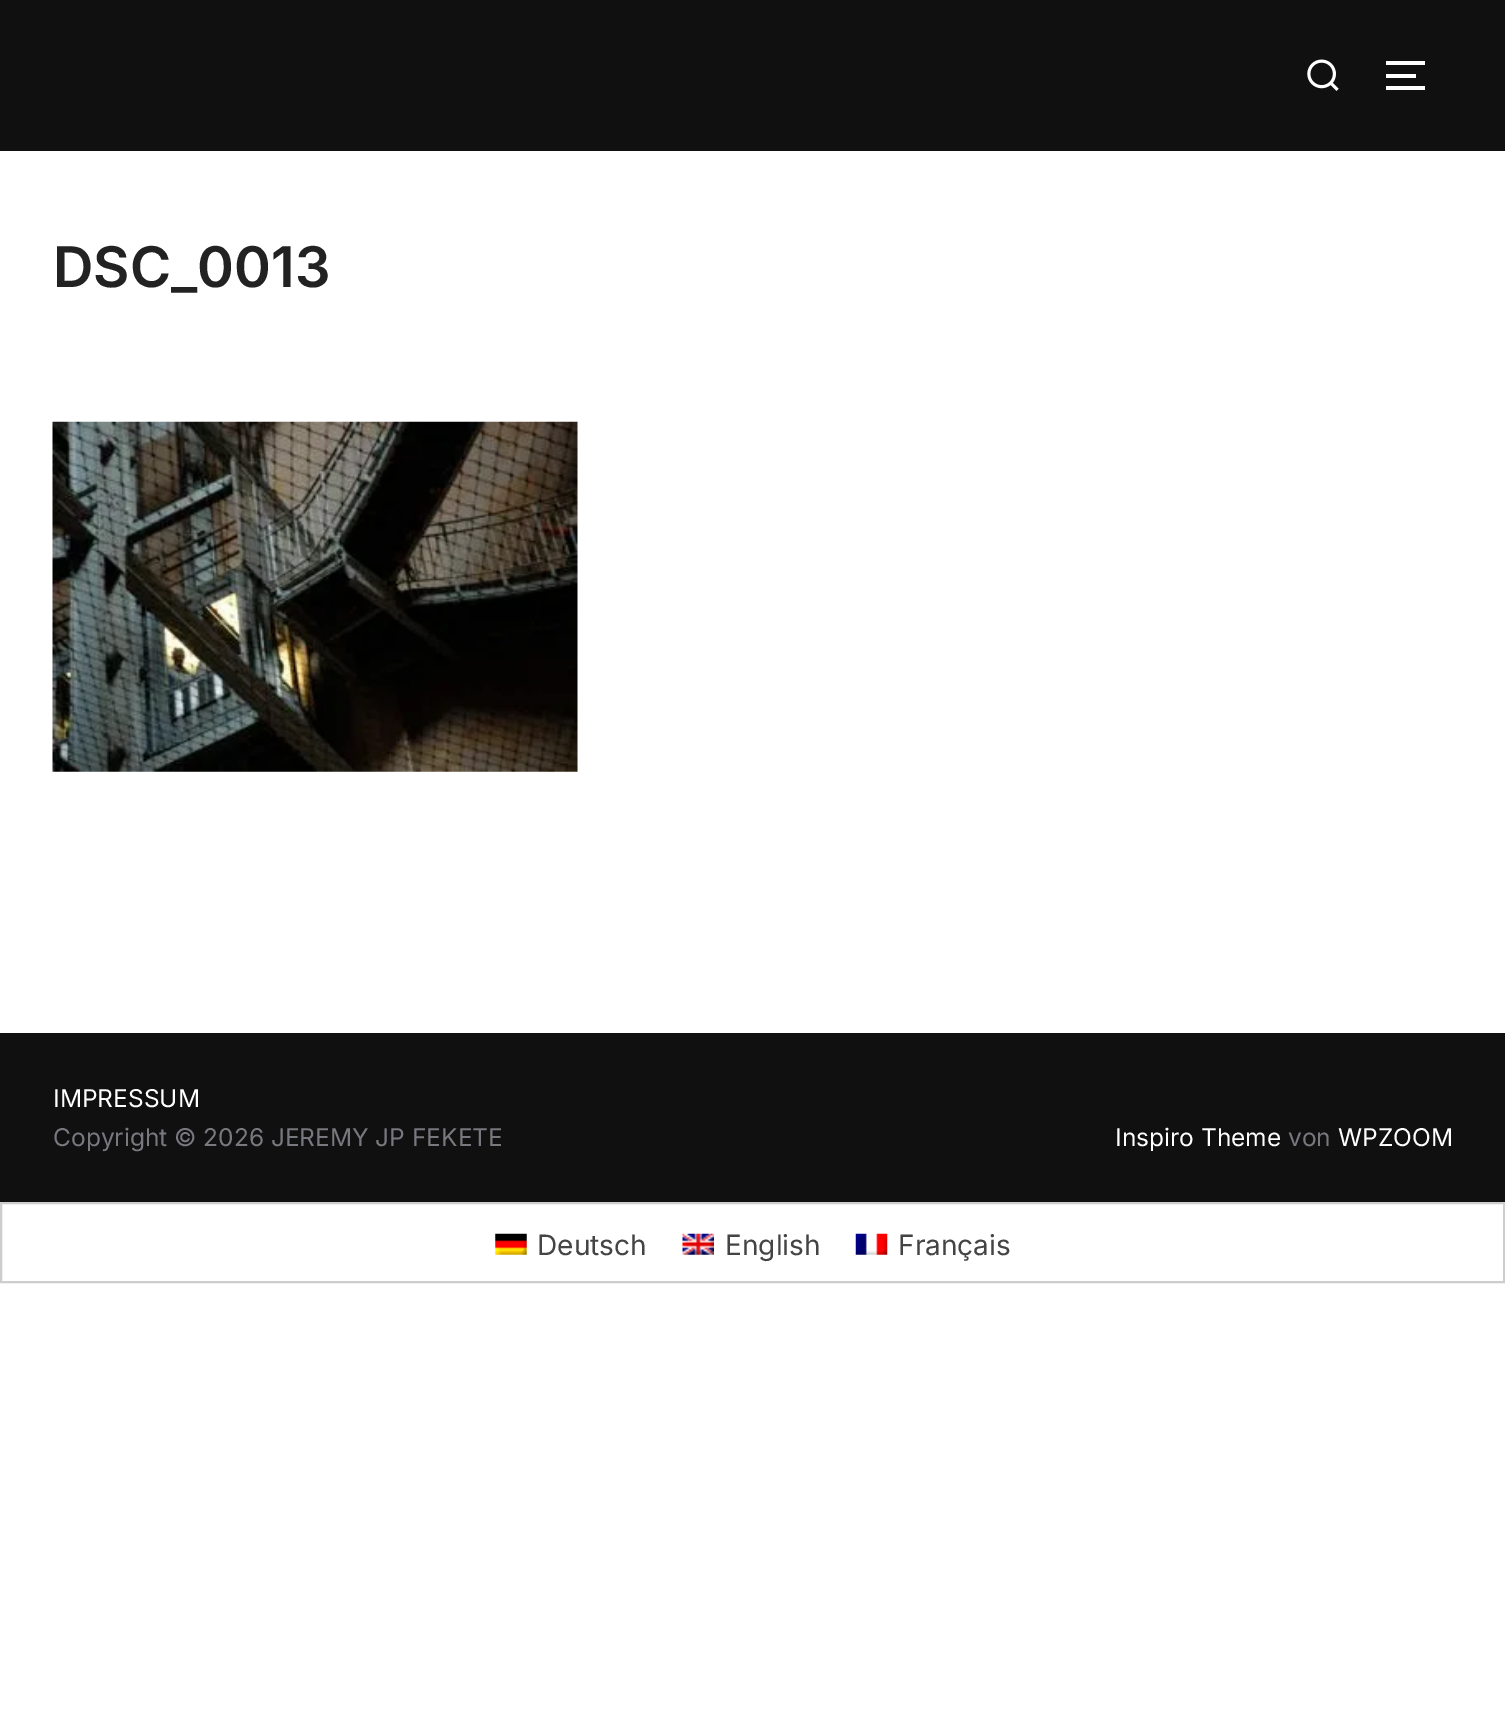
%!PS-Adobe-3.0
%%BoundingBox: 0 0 1505 1713
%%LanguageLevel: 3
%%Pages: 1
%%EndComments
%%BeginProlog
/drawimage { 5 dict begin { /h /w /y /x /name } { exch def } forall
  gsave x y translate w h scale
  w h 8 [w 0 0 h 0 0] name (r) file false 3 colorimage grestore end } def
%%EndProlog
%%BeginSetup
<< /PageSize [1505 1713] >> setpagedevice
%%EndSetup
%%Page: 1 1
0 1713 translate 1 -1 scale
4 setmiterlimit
1 setgray
0 0 1505 1713 rectfill
0.063 setgray
0 0 1505 151 rectfill
(images/1.raw) 1307 59 32 32 drawimage
1 setgray
1386 61 39 4 rectfill
1386 74 30 4 rectfill
1386 86 39 4 rectfill
(images/2.raw) 52 421 526 351 drawimage
0.063 setgray
0 1033 1505 169 rectfill
0.804 setgray
2 setlinewidth
1 1203 1503 79 rectstroke
(images/3.raw) 495 1233 32 22 drawimage
(images/4.raw) 682 1233 32 22 drawimage
(images/5.raw) 855 1233 33 22 drawimage
/Inter-SemiBold [56 0 0 -56 0 0] selectfont
0.133 setgray
53 287 moveto (DSC_0013) show
/Inter-Regular [24.5 0 0 -24.5 0 0] selectfont
1 setgray
53 1107 moveto (IMPRESSUM) show
0.471 0.471 0.498 setrgbcolor
53 1146 moveto (Copyright © 2026 JEREMY JP FEKETE) show
1 setgray
1115 1146 moveto (Inspiro Theme) show
0.471 0.471 0.498 setrgbcolor
1288 1146 moveto (von) show
1 setgray
1338 1146 moveto (WPZOOM) show
/Inter-Regular [28 0 0 -28 0 0] selectfont
0.267 setgray
537 1255 moveto (Deutsch) show
725 1255 moveto (English) show
898 1255 moveto (Français) show
showpage
%%EOF
